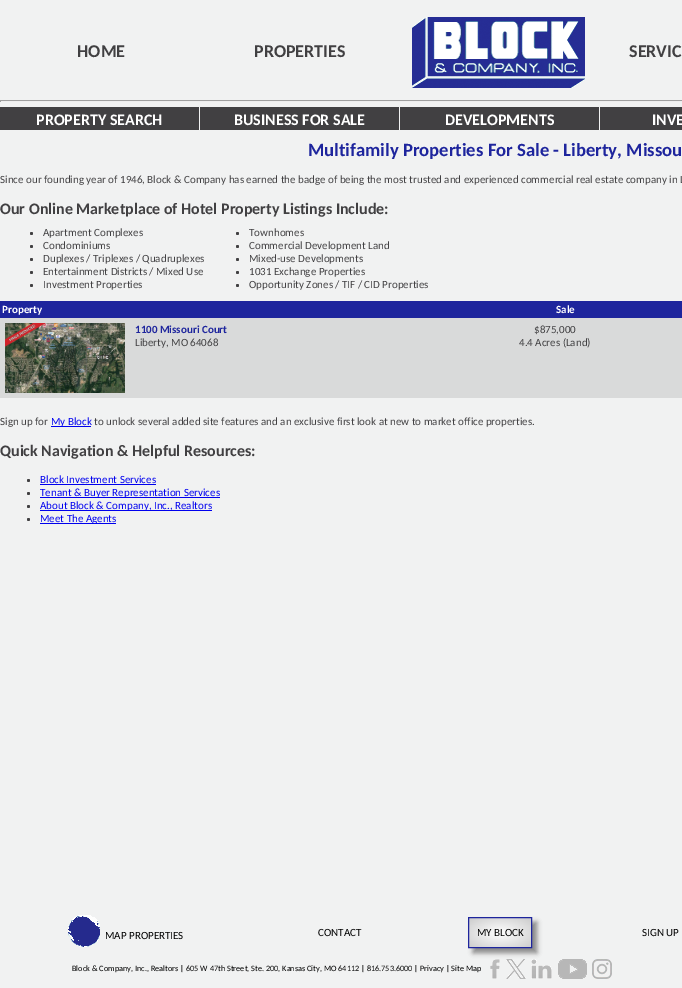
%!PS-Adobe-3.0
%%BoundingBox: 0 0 682 988
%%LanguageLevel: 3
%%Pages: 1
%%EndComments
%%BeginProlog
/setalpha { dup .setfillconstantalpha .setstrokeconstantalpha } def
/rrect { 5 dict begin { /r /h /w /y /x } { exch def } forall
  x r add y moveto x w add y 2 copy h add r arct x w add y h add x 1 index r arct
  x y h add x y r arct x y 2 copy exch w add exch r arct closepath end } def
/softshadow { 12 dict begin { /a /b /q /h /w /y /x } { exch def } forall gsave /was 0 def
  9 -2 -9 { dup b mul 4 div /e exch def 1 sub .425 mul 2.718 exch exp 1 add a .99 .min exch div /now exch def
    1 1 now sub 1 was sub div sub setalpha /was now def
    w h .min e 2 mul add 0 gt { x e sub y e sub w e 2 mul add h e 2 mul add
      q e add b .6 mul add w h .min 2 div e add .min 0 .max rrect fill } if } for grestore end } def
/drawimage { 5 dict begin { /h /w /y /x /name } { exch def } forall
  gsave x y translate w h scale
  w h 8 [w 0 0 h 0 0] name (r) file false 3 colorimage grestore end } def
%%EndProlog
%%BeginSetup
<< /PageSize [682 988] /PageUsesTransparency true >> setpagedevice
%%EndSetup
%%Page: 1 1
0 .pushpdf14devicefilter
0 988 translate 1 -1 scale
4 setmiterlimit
0.945 0.949 0.949 setrgbcolor
0 0 682 988 rectfill
(images/1.raw) 412 17 173 71 drawimage
0.624 setgray
0 100 682 1 rectfill
0.933 setgray
0 101 682 1 rectfill
0.624 setgray
0 100 1 2 rectfill
0.255 0.251 0.259 setrgbcolor
0 107 199 23 rectfill
200 107 199 23 rectfill
400 107 199 23 rectfill
600 107 82 23 rectfill
newpath 31.5 233.5 1.5 0 360 arc closepath fill
newpath 31.5 246.5 1.5 0 360 arc closepath fill
newpath 31.5 259.5 1.5 0 360 arc closepath fill
newpath 31.5 272.5 1.5 0 360 arc closepath fill
newpath 31.5 285.5 1.5 0 360 arc closepath fill
newpath 237.5 233.5 1.5 0 360 arc closepath fill
newpath 237.5 246.5 1.5 0 360 arc closepath fill
newpath 237.5 259.5 1.5 0 360 arc closepath fill
newpath 237.5 272.5 1.5 0 360 arc closepath fill
newpath 237.5 285.5 1.5 0 360 arc closepath fill
0.118 0.145 0.616 setrgbcolor
0 301 682 17 rectfill
0.851 0.855 0.855 setrgbcolor
0 318 682 80 rectfill
(images/2.raw) 5 323 120 70 drawimage
0 0 0.933 setrgbcolor
51 426 40 1 rectfill
0.255 0.251 0.259 setrgbcolor
newpath 28.5 480.5 1.5 0 360 arc closepath fill
0 0 0.933 setrgbcolor
40 484 116 1 rectfill
0.255 0.251 0.259 setrgbcolor
newpath 28.5 493.5 1.5 0 360 arc closepath fill
0 0 0.933 setrgbcolor
40 497 180 1 rectfill
0.255 0.251 0.259 setrgbcolor
newpath 28.5 506.5 1.5 0 360 arc closepath fill
0 0 0.933 setrgbcolor
40 510 172 1 rectfill
0.255 0.251 0.259 setrgbcolor
newpath 28.5 519.5 1.5 0 360 arc closepath fill
0 0 0.933 setrgbcolor
40 523 76 1 rectfill
(images/3.raw) 68 915 32 32 drawimage
0.533 setgray
473 922 64 31 0 2.5 1 softshadow
gsave newpath 469 918 moveto 531 918 lineto 531 947 lineto 469 947 lineto closepath clip newpath 500 933 translate 44 21 scale
<< /ShadingType 3 /ColorSpace /DeviceRGB /Coords [0 0 0 0 0 1] /Extend [true true] /Function << /FunctionType 2 /Domain [0 1] /C0 [1 1 1] /C1 [0.8 0.8 0.8] /N 1 >> >> shfill grestore
0.118 0.145 0.616 setrgbcolor
468.5 917.5 63 30 rectstroke
(images/4.raw) 490 959 10 20 drawimage
(images/5.raw) 506 959 20 20 drawimage
(images/6.raw) 531 959 21 20 drawimage
(images/7.raw) 558 959 29 20 drawimage
(images/8.raw) 592 959 20 20 drawimage
/Carlito-Bold [18 0 0 -18 0 0] selectfont
0.255 0.251 0.259 setrgbcolor
77 57 moveto (HOME) show
254 57 moveto (PROPERTIES) show
629 57 moveto (SERVIC) show
/Carlito-Bold [16 0 0 -16 0 0] selectfont
1 setgray
36 125 moveto (PROPERTY SEARCH) show
234 125 moveto (BUSINESS FOR SALE) show
445 125 moveto (DEVELOPMENTS) show
652 125 moveto (INVE) show
/Carlito-Bold [18.7 0 0 -18.7 0 0] selectfont
0.118 0.145 0.616 setrgbcolor
308 156 moveto (Multifamily Properties For Sale - Liberty, Missou) show
/Carlito-Regular [11 0 0 -11 0 0] selectfont
0.255 0.251 0.259 setrgbcolor
0 183 moveto (Since our founding year of 1946, Block & Company has earned the badge of being the most trusted and experienced commercial real estate company in L) show
/Carlito-Bold [16 0 0 -16 0 0] selectfont
0 214 moveto (Our Online Marketplace of Hotel Property Listings Include:) show
/Carlito-Regular [11 0 0 -11 0 0] selectfont
43 236 moveto (Apartment Complexes) show
43 249 moveto (Condominiums) show
43 262 moveto (Duplexes / Triplexes / Quadruplexes) show
43 275 moveto (Entertainment Districts / Mixed Use) show
43 288 moveto (Investment Properties) show
249 236 moveto (Townhomes) show
249 249 moveto (Commercial Development Land) show
249 262 moveto (Mixed-use Developments) show
249 275 moveto (1031 Exchange Properties) show
249 288 moveto (Opportunity Zones / TIF / CID Properties) show
/Carlito-Bold [11 0 0 -11 0 0] selectfont
1 setgray
2 313 moveto (Property) show
556 313 moveto (Sale) show
0.118 0.145 0.616 setrgbcolor
135 333 moveto (1100 Missouri Court) show
/Carlito-Regular [11 0 0 -11 0 0] selectfont
0.255 0.251 0.259 setrgbcolor
135 346 moveto (Liberty, MO 64068) show
534 333 moveto ($875,000) show
519 346 moveto (4.4 Acres \(Land\)) show
0 425 moveto (Sign up for) show
0 0 0.933 setrgbcolor
51 425 moveto (My Block) show
0.255 0.251 0.259 setrgbcolor
94 425 moveto (to unlock several added site features and an exclusive first look at new to market office properties.) show
/Carlito-Bold [16 0 0 -16 0 0] selectfont
0 456 moveto (Quick Navigation & Helpful Resources:) show
/Carlito-Regular [11 0 0 -11 0 0] selectfont
0 0 0.933 setrgbcolor
40 483 moveto (Block Investment Services) show
40 496 moveto (Tenant & Buyer Representation Services) show
40 509 moveto (About Block & Company, Inc., Realtors) show
40 522 moveto (Meet The Agents) show
0 setgray
105 939 moveto (MAP PROPERTIES) show
318 936 moveto (CONTACT) show
477 936 moveto (MY BLOCK) show
642 936 moveto (SIGN UP) show
/Carlito-Regular [8.25 0 0 -8.25 0 0] selectfont
72 971 moveto (Block & Company, Inc., Realtors | 605 W 47th Street, Ste. 200, Kansas City, MO 64112 | 816.753.6000 | Privacy | Site Map) show
.poppdf14devicefilter showpage
%%EOF
